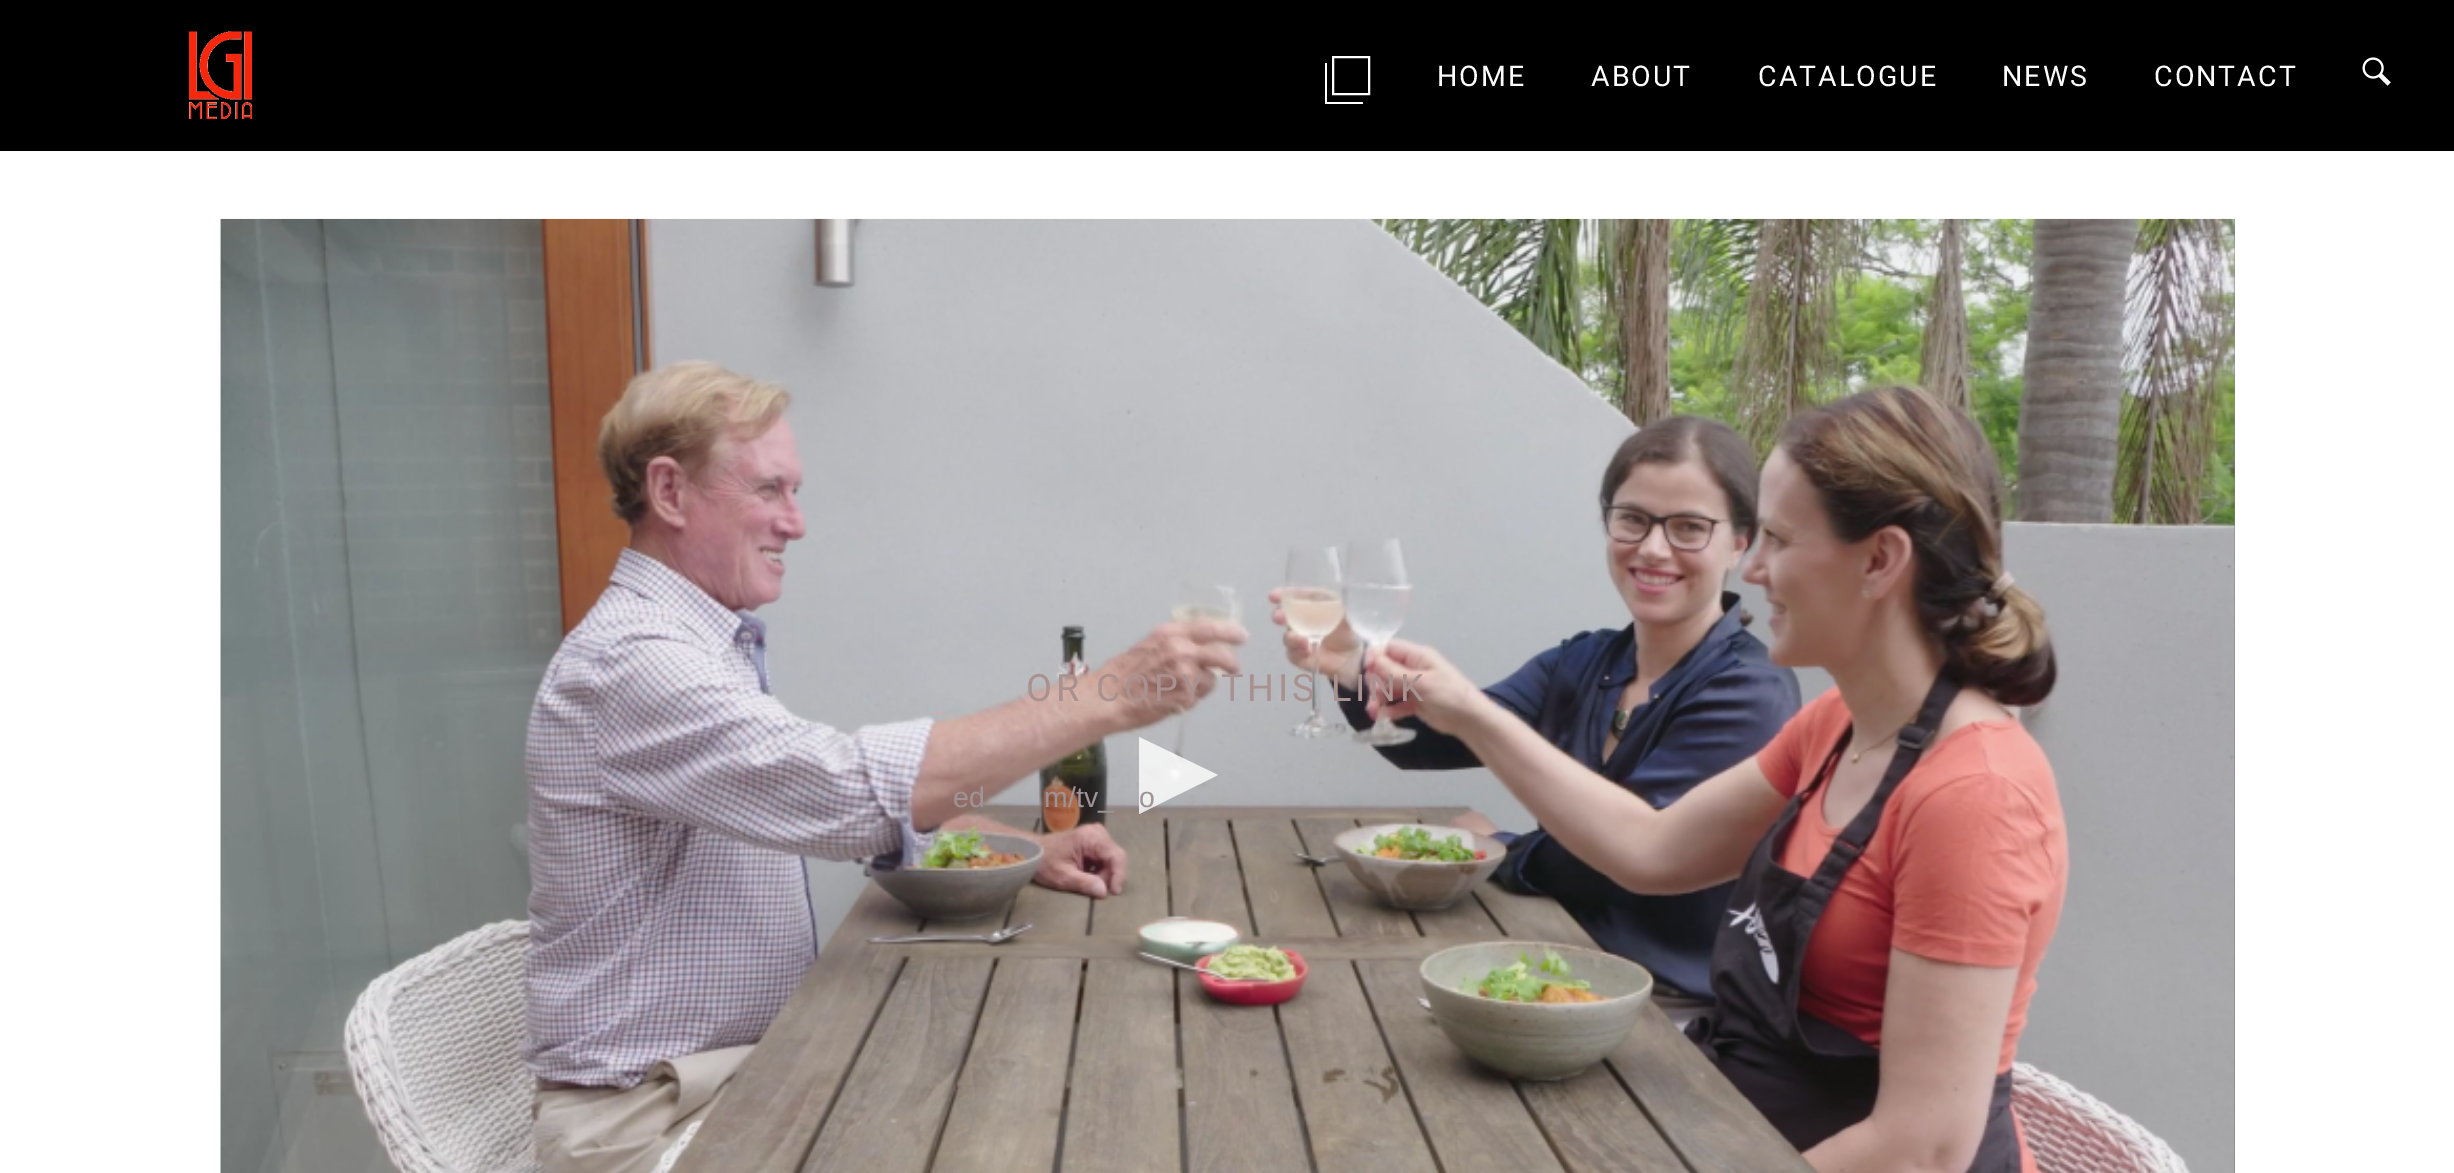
%!PS-Adobe-3.0
%%BoundingBox: 0 0 2454 1173
%%LanguageLevel: 3
%%Pages: 1
%%EndComments
%%BeginProlog
/setalpha { dup .setfillconstantalpha .setstrokeconstantalpha } def
/drawimage { 5 dict begin { /h /w /y /x /name } { exch def } forall
  gsave x y translate w h scale
  w h 8 [w 0 0 h 0 0] name (r) file false 3 colorimage grestore end } def
%%EndProlog
%%BeginSetup
<< /PageSize [2454 1173] /PageUsesTransparency true >> setpagedevice
%%EndSetup
%%Page: 1 1
0 .pushpdf14devicefilter
0 1173 translate 1 -1 scale
4 setmiterlimit
1 setgray
0 0 2454 1173 rectfill
0 setgray
0 0 2454 151 rectfill
(images/1.raw) 189 31 63 88 drawimage
1 setgray
2 setlinewidth
1333 57 36 37 rectstroke
1325 102 38 2 rectfill
1325 63 2 40 rectfill
(images/2.raw) 2362 57 29 29 drawimage
(images/4.raw) 220 219 2015 954 drawimage
(images/3.raw) 220 218 2015 955 drawimage
0.8 setalpha
newpath 1139 814 moveto 1139 737 lineto 1218 775 lineto closepath fill
/Roboto-Regular [28.5 0 0 -28.5 0 0] selectfont
1 setalpha
1437 86 moveto 2 0 (HOME) ashow
1591 86 moveto 2 0 (ABOUT) ashow
1758 86 moveto 2 0 (CATALOGUE) ashow
2002 86 moveto 2 0 (NEWS) ashow
2154 86 moveto 2 0 (CONTACT) ashow
/Roboto-Regular [37.75 0 0 -37.75 0 0] selectfont
0.663 0.569 0.561 setrgbcolor
1026 701 moveto 3.75 0 (OR COPY THIS LINK) ashow
/LiberationSans-Regular [28.5 0 0 -28.5 0 0] selectfont
0.624 0.576 0.588 setrgbcolor
953 807 moveto (ed) show
1044 807 moveto (m/tv_) show
1139 807 moveto (o) show
.poppdf14devicefilter showpage
%%EOF
